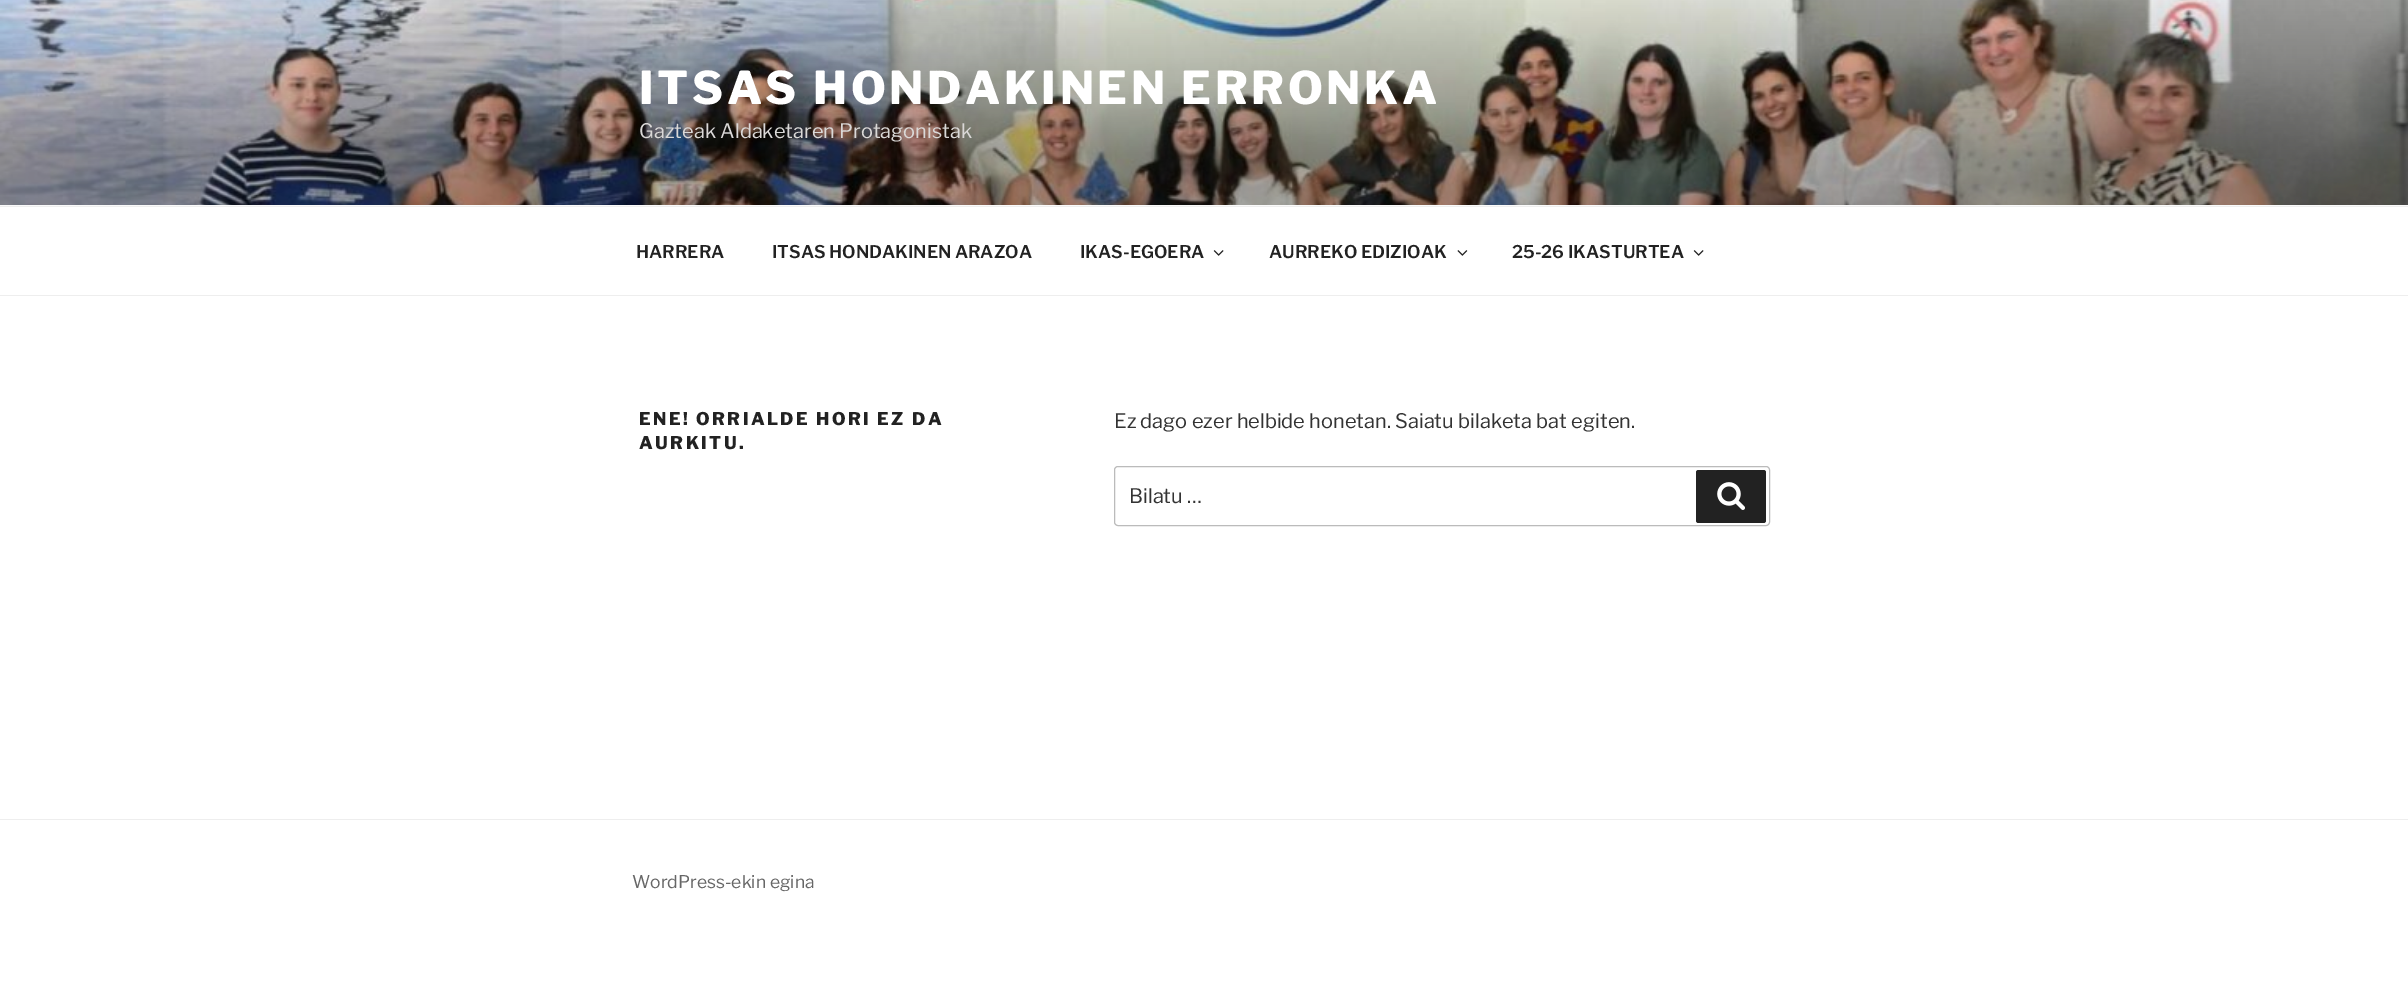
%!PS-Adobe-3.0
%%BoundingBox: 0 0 2408 996
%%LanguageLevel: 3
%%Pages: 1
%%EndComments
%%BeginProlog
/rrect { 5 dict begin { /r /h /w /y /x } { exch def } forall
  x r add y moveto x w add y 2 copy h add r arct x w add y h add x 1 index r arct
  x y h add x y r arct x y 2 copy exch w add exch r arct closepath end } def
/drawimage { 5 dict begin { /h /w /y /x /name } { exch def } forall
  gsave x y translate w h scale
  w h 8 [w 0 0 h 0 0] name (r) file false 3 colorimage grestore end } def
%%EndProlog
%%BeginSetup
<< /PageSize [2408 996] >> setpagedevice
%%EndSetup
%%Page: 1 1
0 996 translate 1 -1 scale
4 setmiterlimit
1 setgray
0 0 2408 996 rectfill
0.98 setgray
0 205 2408 1 rectfill
(images/1.raw) 0 0 2408 205 drawimage
0.933 setgray
0 206 2408 1 rectfill
0 295 2408 1 rectfill
(images/2.raw) 1213 250 11 6 drawimage
(images/3.raw) 1457 250 11 6 drawimage
(images/2.raw) 1693 250 11 6 drawimage
0.733 setgray
1114.5 466.5 655 59 3.5 rrect stroke
0.133 setgray
1696 470 70 53 2.5 rrect fill
(images/4.raw) 1717 482 28 28 drawimage
0.933 setgray
0 819 2408 1 rectfill
/LibreFranklin-Thin [45 0 0 -45 0 0] selectfont
1 setgray
639 104 moveto 3.6 0 (ITSAS HONDAKINEN ERRONKA) ashow
/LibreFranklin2-Thin [20 0 0 -20 0 0] selectfont
0.855 0.847 0.843 setrgbcolor
639 138 moveto (Gazteak Aldaketaren Protagonistak) show
/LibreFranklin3-Thin [17.5 0 0 -17.5 0 0] selectfont
0.133 setgray
636 258 moveto (HARRERA) show
772 258 moveto (ITSAS HONDAKINEN ARAZOA) show
1080 258 moveto (IKAS-EGOERA) show
1269 258 moveto (AURREKO EDIZIOAK) show
1512 258 moveto (25-26 IKASTURTEA) show
/LibreFranklin-Thin [17.5 0 0 -17.5 0 0] selectfont
639 425 moveto 2.45 0 (ENE! ORRIALDE HORI EZ DA) ashow
639 449 moveto 2.45 0 (AURKITU.) ashow
/LibreFranklin2-Thin [20 0 0 -20 0 0] selectfont
0.2 setgray
1114 428 moveto (Ez dago ezer helbide honetan. Saiatu bilaketa bat egiten.) show
1129 503 moveto (Bilatu …) show
/LibreFranklin2-Thin [17.5 0 0 -17.5 0 0] selectfont
0.4 setgray
632 888 moveto (WordPress-ekin egina) show
showpage
%%EOF
